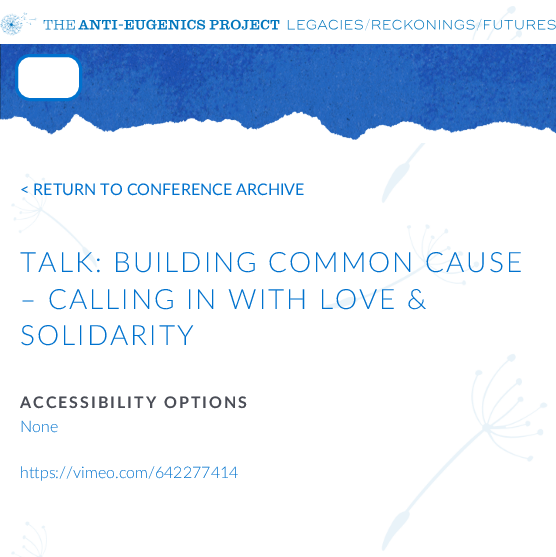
%!PS-Adobe-3.0
%%BoundingBox: 0 0 556 557
%%LanguageLevel: 3
%%Pages: 1
%%EndComments
%%BeginProlog
/rrect { 5 dict begin { /r /h /w /y /x } { exch def } forall
  x r add y moveto x w add y 2 copy h add r arct x w add y h add x 1 index r arct
  x y h add x y r arct x y 2 copy exch w add exch r arct closepath end } def
/drawimage { 5 dict begin { /h /w /y /x /name } { exch def } forall
  gsave x y translate w h scale
  w h 8 [w 0 0 h 0 0] name (r) file false 3 colorimage grestore end } def
%%EndProlog
%%BeginSetup
<< /PageSize [556 557] >> setpagedevice
%%EndSetup
%%Page: 1 1
0 557 translate 1 -1 scale
4 setmiterlimit
1 setgray
0 0 556 557 rectfill
(images/1.raw) 11 6 537 551 drawimage
471 40 42 4 rectfill
(images/2.raw) 0 12 556 24 drawimage
(images/3.raw) 0 44 556 96 drawimage
16.5 55.5 64 44 13.5 rrect gsave fill grestore
0 0.447 0.808 setrgbcolor
3 setlinewidth
stroke
(images/4.raw) 0 111 556 32 drawimage
/Lato-Regular [16 0 0 -16 0 0] selectfont
20 195 moveto (< RETURN TO CONFERENCE ARCHIVE) show
/Lato-Light [28 0 0 -28 0 0] selectfont
20 272 moveto 2 0 (TALK: BUILDING COMMON CAUSE) ashow
20 309 moveto 2 0 (– CALLING IN WITH LOVE &) ashow
20 345 moveto 2 0 (SOLIDARITY) ashow
/Lato-Bold [16 0 0 -16 0 0] selectfont
0.29 0.302 0.337 setrgbcolor
20 408 moveto 2 0 (ACCESSIBILITY OPTIONS) ashow
/Lato-Light [16 0 0 -16 0 0] selectfont
0 0.447 0.808 setrgbcolor
20 432 moveto (None) show
20 478 moveto (https://vimeo.com/642277414) show
showpage
%%EOF
